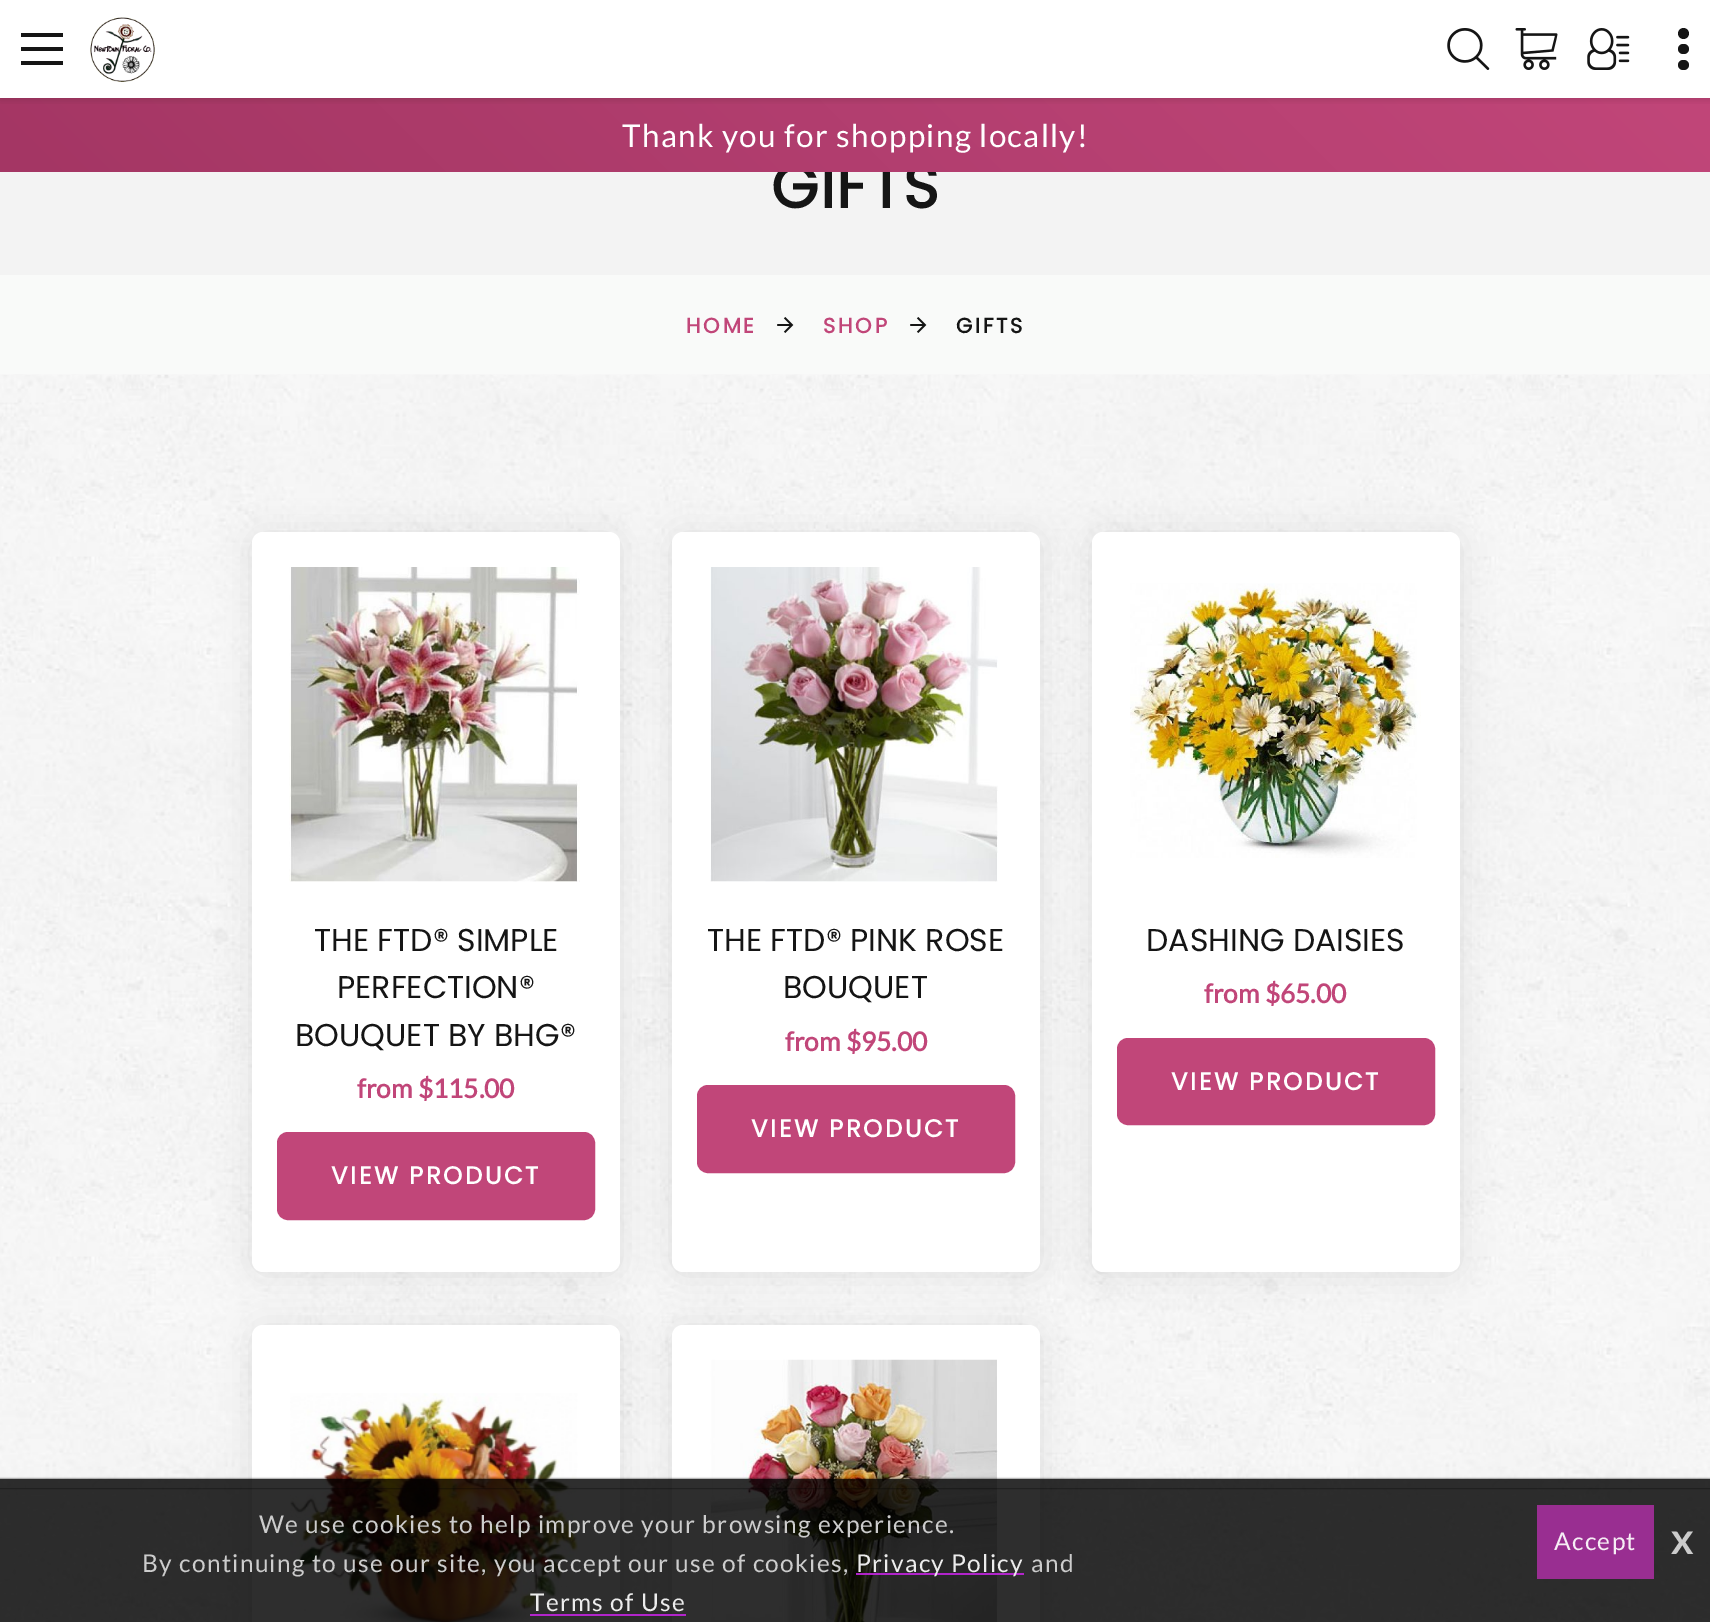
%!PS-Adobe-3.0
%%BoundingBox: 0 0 1710 1622
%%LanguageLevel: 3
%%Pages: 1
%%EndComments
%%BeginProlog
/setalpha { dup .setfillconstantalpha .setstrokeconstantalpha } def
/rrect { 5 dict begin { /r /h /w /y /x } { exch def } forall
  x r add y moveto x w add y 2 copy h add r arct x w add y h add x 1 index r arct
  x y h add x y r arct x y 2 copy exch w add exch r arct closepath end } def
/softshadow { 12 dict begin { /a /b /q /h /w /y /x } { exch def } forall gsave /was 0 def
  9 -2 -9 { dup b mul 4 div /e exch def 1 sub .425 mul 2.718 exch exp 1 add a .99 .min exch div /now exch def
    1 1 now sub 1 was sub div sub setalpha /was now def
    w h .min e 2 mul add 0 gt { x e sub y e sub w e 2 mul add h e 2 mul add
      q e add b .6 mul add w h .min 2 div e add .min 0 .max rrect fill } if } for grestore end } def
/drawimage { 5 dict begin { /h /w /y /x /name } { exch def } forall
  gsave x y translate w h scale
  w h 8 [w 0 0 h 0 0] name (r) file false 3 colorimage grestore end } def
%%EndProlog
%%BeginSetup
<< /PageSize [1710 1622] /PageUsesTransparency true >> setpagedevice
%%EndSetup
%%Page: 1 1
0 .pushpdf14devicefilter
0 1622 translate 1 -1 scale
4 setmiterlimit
1 setgray
0 0 1710 1622 rectfill
0.953 setgray
0 172 1710 103 rectfill
0.976 0.98 0.976 setrgbcolor
0 275 1710 100 rectfill
(images/5.raw) 777 317 17 16 drawimage
(images/5.raw) 910 317 17 16 drawimage
(images/6.raw) 0 374 1710 1248 drawimage
0 setgray
252 534 368 740 11 16 0.09 softshadow
1 setgray
252 532 368 740 11 rrect fill
(images/7.raw) 289 567 291 315 drawimage
0.757 0.275 0.475 setrgbcolor
279 1134 314 84 9 rrect gsave fill grestore
4 setlinewidth
stroke
0 setgray
672 534 368 740 11 16 0.09 softshadow
1 setgray
672 532 368 740 11 rrect fill
(images/8.raw) 710 567 288 315 drawimage
0.757 0.275 0.475 setrgbcolor
699 1087 314 84 9 rrect gsave fill grestore
stroke
0 setgray
1092 534 368 740 11 16 0.09 softshadow
1 setgray
1092 532 368 740 11 rrect fill
(images/9.raw) 1130 583 291 275 drawimage
0.757 0.275 0.475 setrgbcolor
1119 1040 314 83 9 rrect gsave fill grestore
stroke
0 setgray
252 1327 368 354 11 16 0.09 softshadow
1 setgray
252 1325 368 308 11 rrect fill
(images/10.raw) 290 1393 288 229 drawimage
0 setgray
672 1327 368 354 11 16 0.09 softshadow
1 setgray
672 1325 368 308 11 rrect fill
(images/11.raw) 710 1359 288 263 drawimage
0.82 setalpha
0 setgray
0 1479 1710 143 rectfill
gsave
newpath 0 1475 moveto 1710 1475 lineto 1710 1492 lineto 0 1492 lineto closepath 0 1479 moveto 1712 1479 lineto 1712 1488 lineto 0 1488 lineto closepath eoclip newpath
1 setalpha
0 1479 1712 9 0 1 0.91 softshadow
grestore
0.91 setalpha
0.749 0.141 0.859 setrgbcolor
856 1573 168 2 rectfill
530 1614 156 2 rectfill
0.643 0.18 0.608 setrgbcolor
1537 1505 117 74 rectfill
/Poppins-Bold [61 0 0 -61 0 0] selectfont
1 setalpha
0.082 setgray
771 208 moveto 1.5 0 (GIFTS) ashow
gsave newpath 0 98 moveto 1710 98 lineto 1710 172 lineto 0 172 lineto closepath clip newpath
<< /ShadingType 2 /ColorSpace /DeviceRGB /Coords [410 581 1302 -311] /Extend [true true] /Function << /FunctionType 2 /Domain [0 1] /C0 [0.643 0.212 0.392] /C1 [0.757 0.275 0.475] /N 1 >> >> shfill grestore
gsave
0 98 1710 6 rectclip
0.004 0.012 0.016 setrgbcolor
0 0 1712 98 0 4.5 0.19 softshadow
grestore
(images/4.raw) 1587 28 43 42 drawimage
(images/3.raw) 1515 28 43 42 drawimage
(images/2.raw) 1447 28 43 42 drawimage
1678 60 11 10 5 rrect fill
newpath 1683.5 33.5 5.5 0 360 arc closepath fill
1678 44 11 10 5 rrect fill
(images/1.raw) 90 17 65 65 drawimage
21 61 42 4 rectfill
21 33 42 4 rectfill
21 47 42 4 rectfill
/Lato-Regular [31.5 0 0 -31.5 0 0] selectfont
1 setgray
622 147 moveto 1.3 0 (Thank you for shopping locally!) ashow
/Poppins-Bold [21 0 0 -21 0 0] selectfont
0.757 0.275 0.475 setrgbcolor
686 333 moveto 2.75 0 (HOME) ashow
823 333 moveto 2.75 0 (SHOP) ashow
0.082 setgray
956 333 moveto 2.75 0 (GIFTS) ashow
/Poppins-Regular [31.5 0 0 -31.5 0 0] selectfont
314 951 moveto (THE FTD® SIMPLE) show
337 998 moveto (PERFECTION®) show
295 1046 moveto (BOUQUET BY BHG®) show
/Lato-Bold [26.25 0 0 -26.25 0 0] selectfont
0.757 0.275 0.475 setrgbcolor
357 1098 moveto (from $115.00) show
/Poppins-Bold [24.5 0 0 -24.5 0 0] selectfont
1 setgray
331 1184 moveto 2.5 0 (VIEW PRODUCT) ashow
/Poppins-Regular [31.5 0 0 -31.5 0 0] selectfont
0.082 setgray
707 951 moveto (THE FTD® PINK ROSE) show
783 998 moveto (BOUQUET) show
/Lato-Bold [26.25 0 0 -26.25 0 0] selectfont
0.757 0.275 0.475 setrgbcolor
785 1051 moveto (from $95.00) show
/Poppins-Bold [24.5 0 0 -24.5 0 0] selectfont
1 setgray
751 1137 moveto 2.5 0 (VIEW PRODUCT) ashow
/Poppins-Regular [31.5 0 0 -31.5 0 0] selectfont
0.082 setgray
1146 951 moveto (DASHING DAISIES) show
/Lato-Bold [26.25 0 0 -26.25 0 0] selectfont
0.757 0.275 0.475 setrgbcolor
1204 1003 moveto (from $65.00) show
/Poppins-Bold [24.5 0 0 -24.5 0 0] selectfont
1 setgray
1171 1090 moveto 2.5 0 (VIEW PRODUCT) ashow
/Lato-Regular [24.5 0 0 -24.5 0 0] selectfont
0.8 setgray
259 1533 moveto 1.3 0 (We use cookies to help improve your browsing experience.) ashow
142 1572 moveto 1.3 0 (By continuing to use our site, you accept our use of cookies,) ashow
0.925 setgray
856 1572 moveto 1.3 0 (Privacy Policy) ashow
0.8 setgray
1031 1572 moveto 1.3 0 (and) ashow
0.925 setgray
530 1611 moveto 1.3 0 (Terms of Use) ashow
0.965 0.929 0.961 setrgbcolor
1554 1550 moveto 1.3 0 (Accept) ashow
/Lato-Bold [42 0 0 -42 0 0] selectfont
0.8 setgray
1671 1554 moveto 1.3 0 (x) ashow
.poppdf14devicefilter showpage
%%EOF
